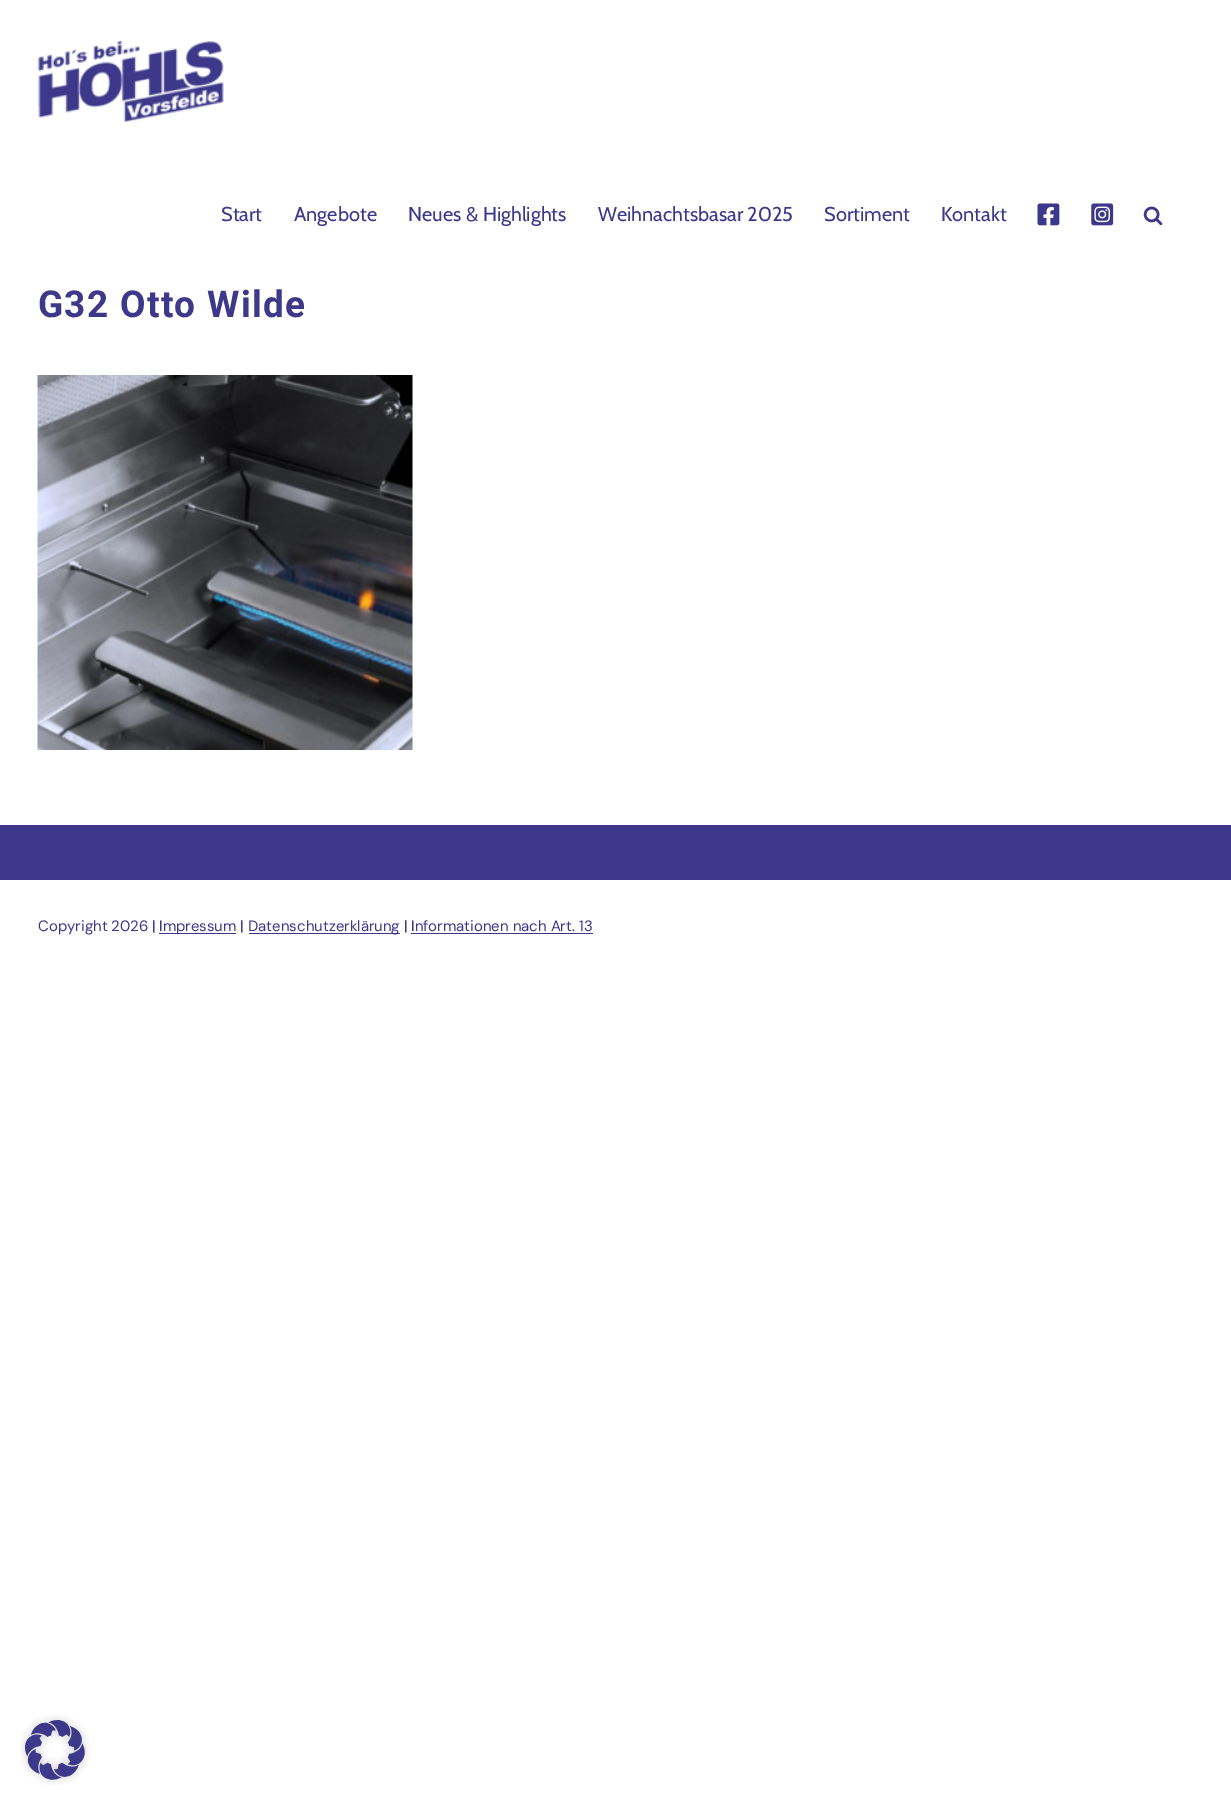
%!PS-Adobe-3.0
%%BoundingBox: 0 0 1231 1805
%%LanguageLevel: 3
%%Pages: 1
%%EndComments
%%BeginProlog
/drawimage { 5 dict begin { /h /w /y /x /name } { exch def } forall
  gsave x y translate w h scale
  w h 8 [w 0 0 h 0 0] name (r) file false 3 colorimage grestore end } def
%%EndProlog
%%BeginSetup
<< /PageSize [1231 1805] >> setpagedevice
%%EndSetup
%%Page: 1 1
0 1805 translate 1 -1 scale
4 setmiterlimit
1 setgray
0 0 1231 1805 rectfill
(images/1.raw) 37 40 187 83 drawimage
(images/2.raw) 1037 203 23 23 drawimage
(images/3.raw) 1091 203 23 23 drawimage
(images/4.raw) 1143 206 20 20 drawimage
(images/5.raw) 37 375 376 375 drawimage
0.239 0.22 0.537 setrgbcolor
0 825 1231 55 rectfill
159 933 77 1 rectfill
249 933 151 1 rectfill
411 933 182 1 rectfill
(images/6.raw) 20 1715 70 70 drawimage
/Cabin-Regular [20 0 0 -20 0 0] selectfont
221 221 moveto (Start) show
294 221 moveto (Angebote) show
408 221 moveto (Neues & Highlights) show
598 221 moveto (Weihnachtsbasar 2025) show
824 221 moveto (Sortiment) show
941 221 moveto (Kontakt) show
/Heebo-Bold [37 0 0 -37 0 0] selectfont
38 317 moveto 1.25 0 (G32 Otto Wilde) ashow
/DMSans-Regular [15 0 0 -15 0 0] selectfont
38 931 moveto (Copyright 2026 |) show
159 931 moveto (Impressum |) show
248 931 moveto (Datenschutzerklärung | Informationen nach Art. 13) show
showpage
%%EOF
